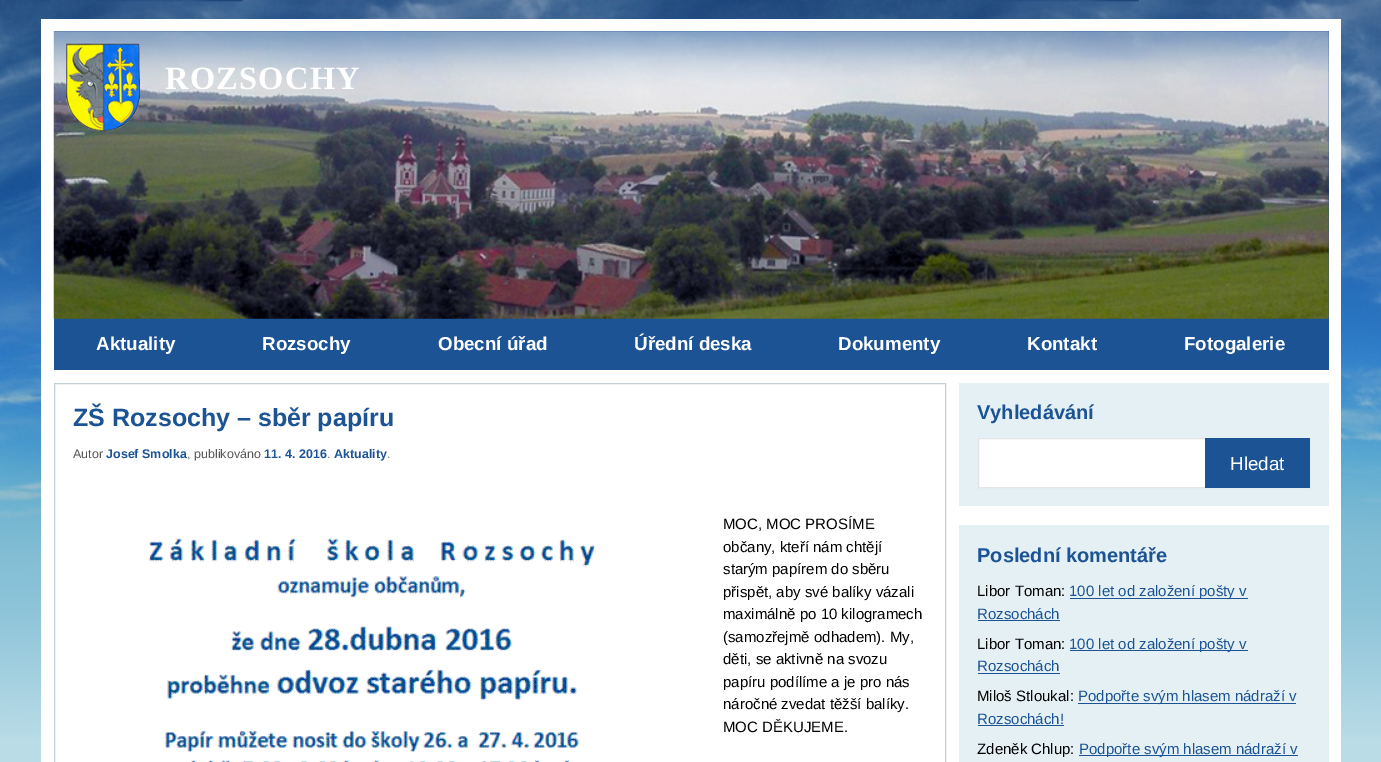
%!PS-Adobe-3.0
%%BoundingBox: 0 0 1381 762
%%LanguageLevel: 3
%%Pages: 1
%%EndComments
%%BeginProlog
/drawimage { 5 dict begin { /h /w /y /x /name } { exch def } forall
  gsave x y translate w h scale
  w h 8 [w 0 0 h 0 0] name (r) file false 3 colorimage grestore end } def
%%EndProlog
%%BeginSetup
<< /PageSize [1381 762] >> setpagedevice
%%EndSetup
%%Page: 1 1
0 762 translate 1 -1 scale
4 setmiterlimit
0.729 0.863 0.906 setrgbcolor
0 0 1381 762 rectfill
(images/1.raw) 0 0 1381 737 drawimage
1 setgray
41 19 1300 743 rectfill
0.11 0.325 0.584 setrgbcolor
54 31 1275 339 rectfill
(images/2.raw) 53 31 1276 288 drawimage
(images/3.raw) 66 43 74 89 drawimage
0.757 0.82 0.839 setrgbcolor
54.5 383.5 891 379 rectstroke
(images/4.raw) 148 538 448 224 drawimage
0.894 0.941 0.957 setrgbcolor
959 383 370 123 rectfill
1 setgray
979 439 226 48 rectfill
0.898 0.89 0.89 setrgbcolor
978.5 438.5 331 49 rectstroke
0.11 0.325 0.584 setrgbcolor
1205 438 105 50 rectfill
0.894 0.941 0.957 setrgbcolor
959 525 370 237 rectfill
0.11 0.325 0.584 setrgbcolor
1070 598 178 1 rectfill
978 620 82 1 rectfill
1070 650 178 1 rectfill
978 673 82 1 rectfill
1078 703 218 1 rectfill
978 725 86 1 rectfill
1079 755 219 1 rectfill
/LiberationSerif-Bold [32.5 0 0 -32.5 0 0] selectfont
1 setgray
165 89 moveto 1.25 0 (ROZSOCHY) ashow
/LiberationSans-Bold [18.75 0 0 -18.75 0 0] selectfont
96 350 moveto (Aktuality) show
262 350 moveto (Rozsochy) show
438 350 moveto (Obecní úřad) show
634 350 moveto (Úřední deska) show
838 350 moveto (Dokumenty) show
1027 350 moveto (Kontakt) show
1184 350 moveto (Fotogalerie) show
/LiberationSans-Bold [25 0 0 -25 0 0] selectfont
0.11 0.325 0.584 setrgbcolor
73 426 moveto (ZŠ Rozsochy – sběr papíru) show
/LiberationSans-Regular [12.5 0 0 -12.5 0 0] selectfont
0.341 setgray
73 458 moveto (Autor) show
/LiberationSans-Bold [12.5 0 0 -12.5 0 0] selectfont
0.11 0.325 0.584 setrgbcolor
106 458 moveto (Josef Smolka) show
/LiberationSans-Regular [12.5 0 0 -12.5 0 0] selectfont
0.341 setgray
187 458 moveto (, publikováno) show
/LiberationSans-Bold [12.5 0 0 -12.5 0 0] selectfont
0.11 0.325 0.584 setrgbcolor
264 458 moveto (11. 4. 2016) show
/LiberationSans-Regular [12.5 0 0 -12.5 0 0] selectfont
0.341 setgray
327 458 moveto (.) show
/LiberationSans-Bold [12.5 0 0 -12.5 0 0] selectfont
0.11 0.325 0.584 setrgbcolor
334 458 moveto (Aktuality) show
/LiberationSans-Regular [12.5 0 0 -12.5 0 0] selectfont
0.341 setgray
387 458 moveto (.) show
/LiberationSans-Regular [15 0 0 -15 0 0] selectfont
0 setgray
723 529 moveto (MOC, MOC PROSÍME) show
723 552 moveto (občany, kteří nám chtějí) show
723 574 moveto (starým papírem do sběru) show
723 597 moveto (přispět, aby své balíky vázali) show
723 619 moveto (maximálně po 10 kilogramech) show
723 642 moveto (\(samozřejmě odhadem\). My,) show
723 664 moveto (děti, se aktivně na svozu) show
723 687 moveto (papíru podílíme a je pro nás) show
723 709 moveto (náročné zvedat těžší balíky.) show
723 732 moveto (MOC DĚKUJEME.) show
/LiberationSans-Bold [20 0 0 -20 0 0] selectfont
0.11 0.325 0.584 setrgbcolor
977 419 moveto (Vyhledávání) show
/LiberationSans-Regular [18.75 0 0 -18.75 0 0] selectfont
1 setgray
1230 470 moveto (Hledat) show
/LiberationSans-Bold [20 0 0 -20 0 0] selectfont
0.11 0.325 0.584 setrgbcolor
977 562 moveto (Poslední komentáře) show
/LiberationSans-Regular [15 0 0 -15 0 0] selectfont
0 setgray
977 596 moveto (Libor Toman:) show
0.11 0.325 0.584 setrgbcolor
1069 596 moveto (100 let od založení pošty v) show
977 619 moveto (Rozsochách) show
0 setgray
977 649 moveto (Libor Toman:) show
0.11 0.325 0.584 setrgbcolor
1069 649 moveto (100 let od založení pošty v) show
977 671 moveto (Rozsochách) show
0 setgray
977 701 moveto (Miloš Stloukal:) show
0.11 0.325 0.584 setrgbcolor
1078 701 moveto (Podpořte svým hlasem nádraží v) show
977 724 moveto (Rozsochách!) show
0 setgray
977 754 moveto (Zdeněk Chlup:) show
0.11 0.325 0.584 setrgbcolor
1079 754 moveto (Podpořte svým hlasem nádraží v) show
showpage
%%EOF
